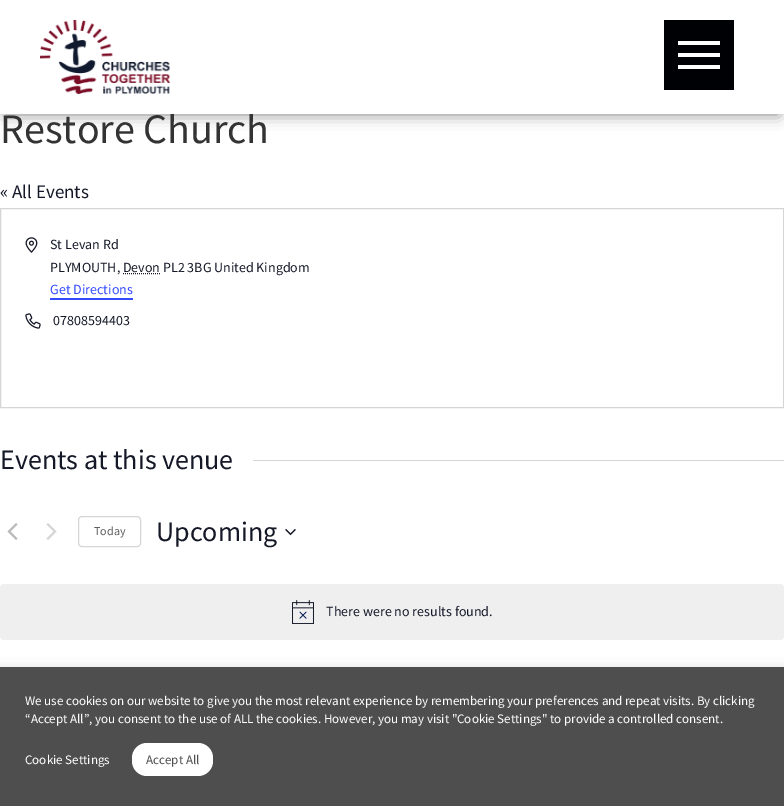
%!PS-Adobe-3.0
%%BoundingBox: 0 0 784 806
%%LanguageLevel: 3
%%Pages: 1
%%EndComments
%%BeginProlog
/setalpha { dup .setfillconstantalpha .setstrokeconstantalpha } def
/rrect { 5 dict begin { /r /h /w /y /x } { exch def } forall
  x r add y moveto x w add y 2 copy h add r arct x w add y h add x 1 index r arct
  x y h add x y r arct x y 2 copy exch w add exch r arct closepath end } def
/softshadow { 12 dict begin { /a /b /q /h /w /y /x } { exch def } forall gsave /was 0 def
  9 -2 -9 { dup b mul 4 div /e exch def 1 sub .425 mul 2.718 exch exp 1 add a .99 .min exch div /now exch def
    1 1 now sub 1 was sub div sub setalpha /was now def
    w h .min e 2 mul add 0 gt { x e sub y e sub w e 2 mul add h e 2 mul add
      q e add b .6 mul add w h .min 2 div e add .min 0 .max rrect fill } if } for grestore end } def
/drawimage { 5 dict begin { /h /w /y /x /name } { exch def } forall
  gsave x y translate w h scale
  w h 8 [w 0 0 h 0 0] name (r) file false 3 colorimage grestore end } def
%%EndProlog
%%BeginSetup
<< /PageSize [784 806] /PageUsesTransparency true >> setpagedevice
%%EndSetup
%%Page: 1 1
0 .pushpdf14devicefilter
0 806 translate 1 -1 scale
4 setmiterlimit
1 setgray
0 0 784 806 rectfill
0 setgray
5 10 774 104 0 7.5 0.5 softshadow
0.835 setgray
0.5 208.5 783 199 rectstroke
(images/2.raw) 25 237 13 16 drawimage
0.078 0.094 0.153 setrgbcolor
[1 1] 0 setdash
newpath 123 273.5 moveto 160 273.5 lineto stroke
0.2 0.29 1 setrgbcolor
50 298 83 2 rectfill
(images/3.raw) 25 313 16 16 drawimage
0.835 setgray
253 460 531 1 rectfill
(images/4.raw) 7 523 11 17 drawimage
(images/5.raw) 46 523 11 17 drawimage
[] 0 setdash
78.5 516.5 62 30 3.5 rrect stroke
(images/6.raw) 285 528 11 8 drawimage
0.937 0.937 0.941 setrgbcolor
0 584 784 56 4 rrect fill
(images/7.raw) 292 600 22 24 drawimage
0.675 0.671 0.671 setrgbcolor
0 666 784 139 0 5 0.3 softshadow
0.306 setgray
0 667 784 139 rectfill
1 setgray
132 743 81 33 15 rrect fill
/SourceSansPro-Regular [42 0 0 -42 0 0] selectfont
0.2 setgray
0 143 moveto (Restore Church) show
1 setgray
0 0 784 114 rectfill
0 0.004 0.016 setrgbcolor
664 20 70 70 rectfill
1 setgray
678 65 42 4 rectfill
678 53 42 4 rectfill
678 41 42 4 rectfill
(images/1.raw) 40 20 130 74 drawimage
/SourceSansPro-Regular [19 0 0 -19 0 0] selectfont
0.078 0.094 0.153 setrgbcolor
0 198 moveto (« All Events) show
/SourceSansPro-Regular [14 0 0 -14 0 0] selectfont
50 249 moveto (St Levan Rd) show
50 272 moveto (PLYMOUTH, Devon PL2 3BG United Kingdom) show
0.2 0.29 1 setrgbcolor
50 294 moveto (Get Directions) show
0.078 0.094 0.153 setrgbcolor
53 325 moveto (07808594403) show
/SourceSansPro-Regular [28 0 0 -28 0 0] selectfont
0 469 moveto (Events at this venue) show
/SourceSansPro-Regular [12 0 0 -12 0 0] selectfont
0.365 setgray
94 535 moveto (Today) show
/SourceSansPro-Regular [28 0 0 -28 0 0] selectfont
0.078 0.094 0.153 setrgbcolor
156 541 moveto (Upcoming) show
/SourceSansPro-Regular [14 0 0 -14 0 0] selectfont
326 616 moveto (There were no results found.) show
/SourceSansPro-Regular [13 0 0 -13 0 0] selectfont
1 setgray
25 705 moveto (We use cookies on our website to give you the most relevant experience by remembering your preferences and repeat visits. By clicking) show
25 723 moveto (“Accept All”, you consent to the use of ALL the cookies. However, you may visit "Cookie Settings" to provide a controlled consent.) show
25 764 moveto (Cookie Settings) show
0.306 setgray
146 764 moveto (Accept All) show
.poppdf14devicefilter showpage
%%EOF
